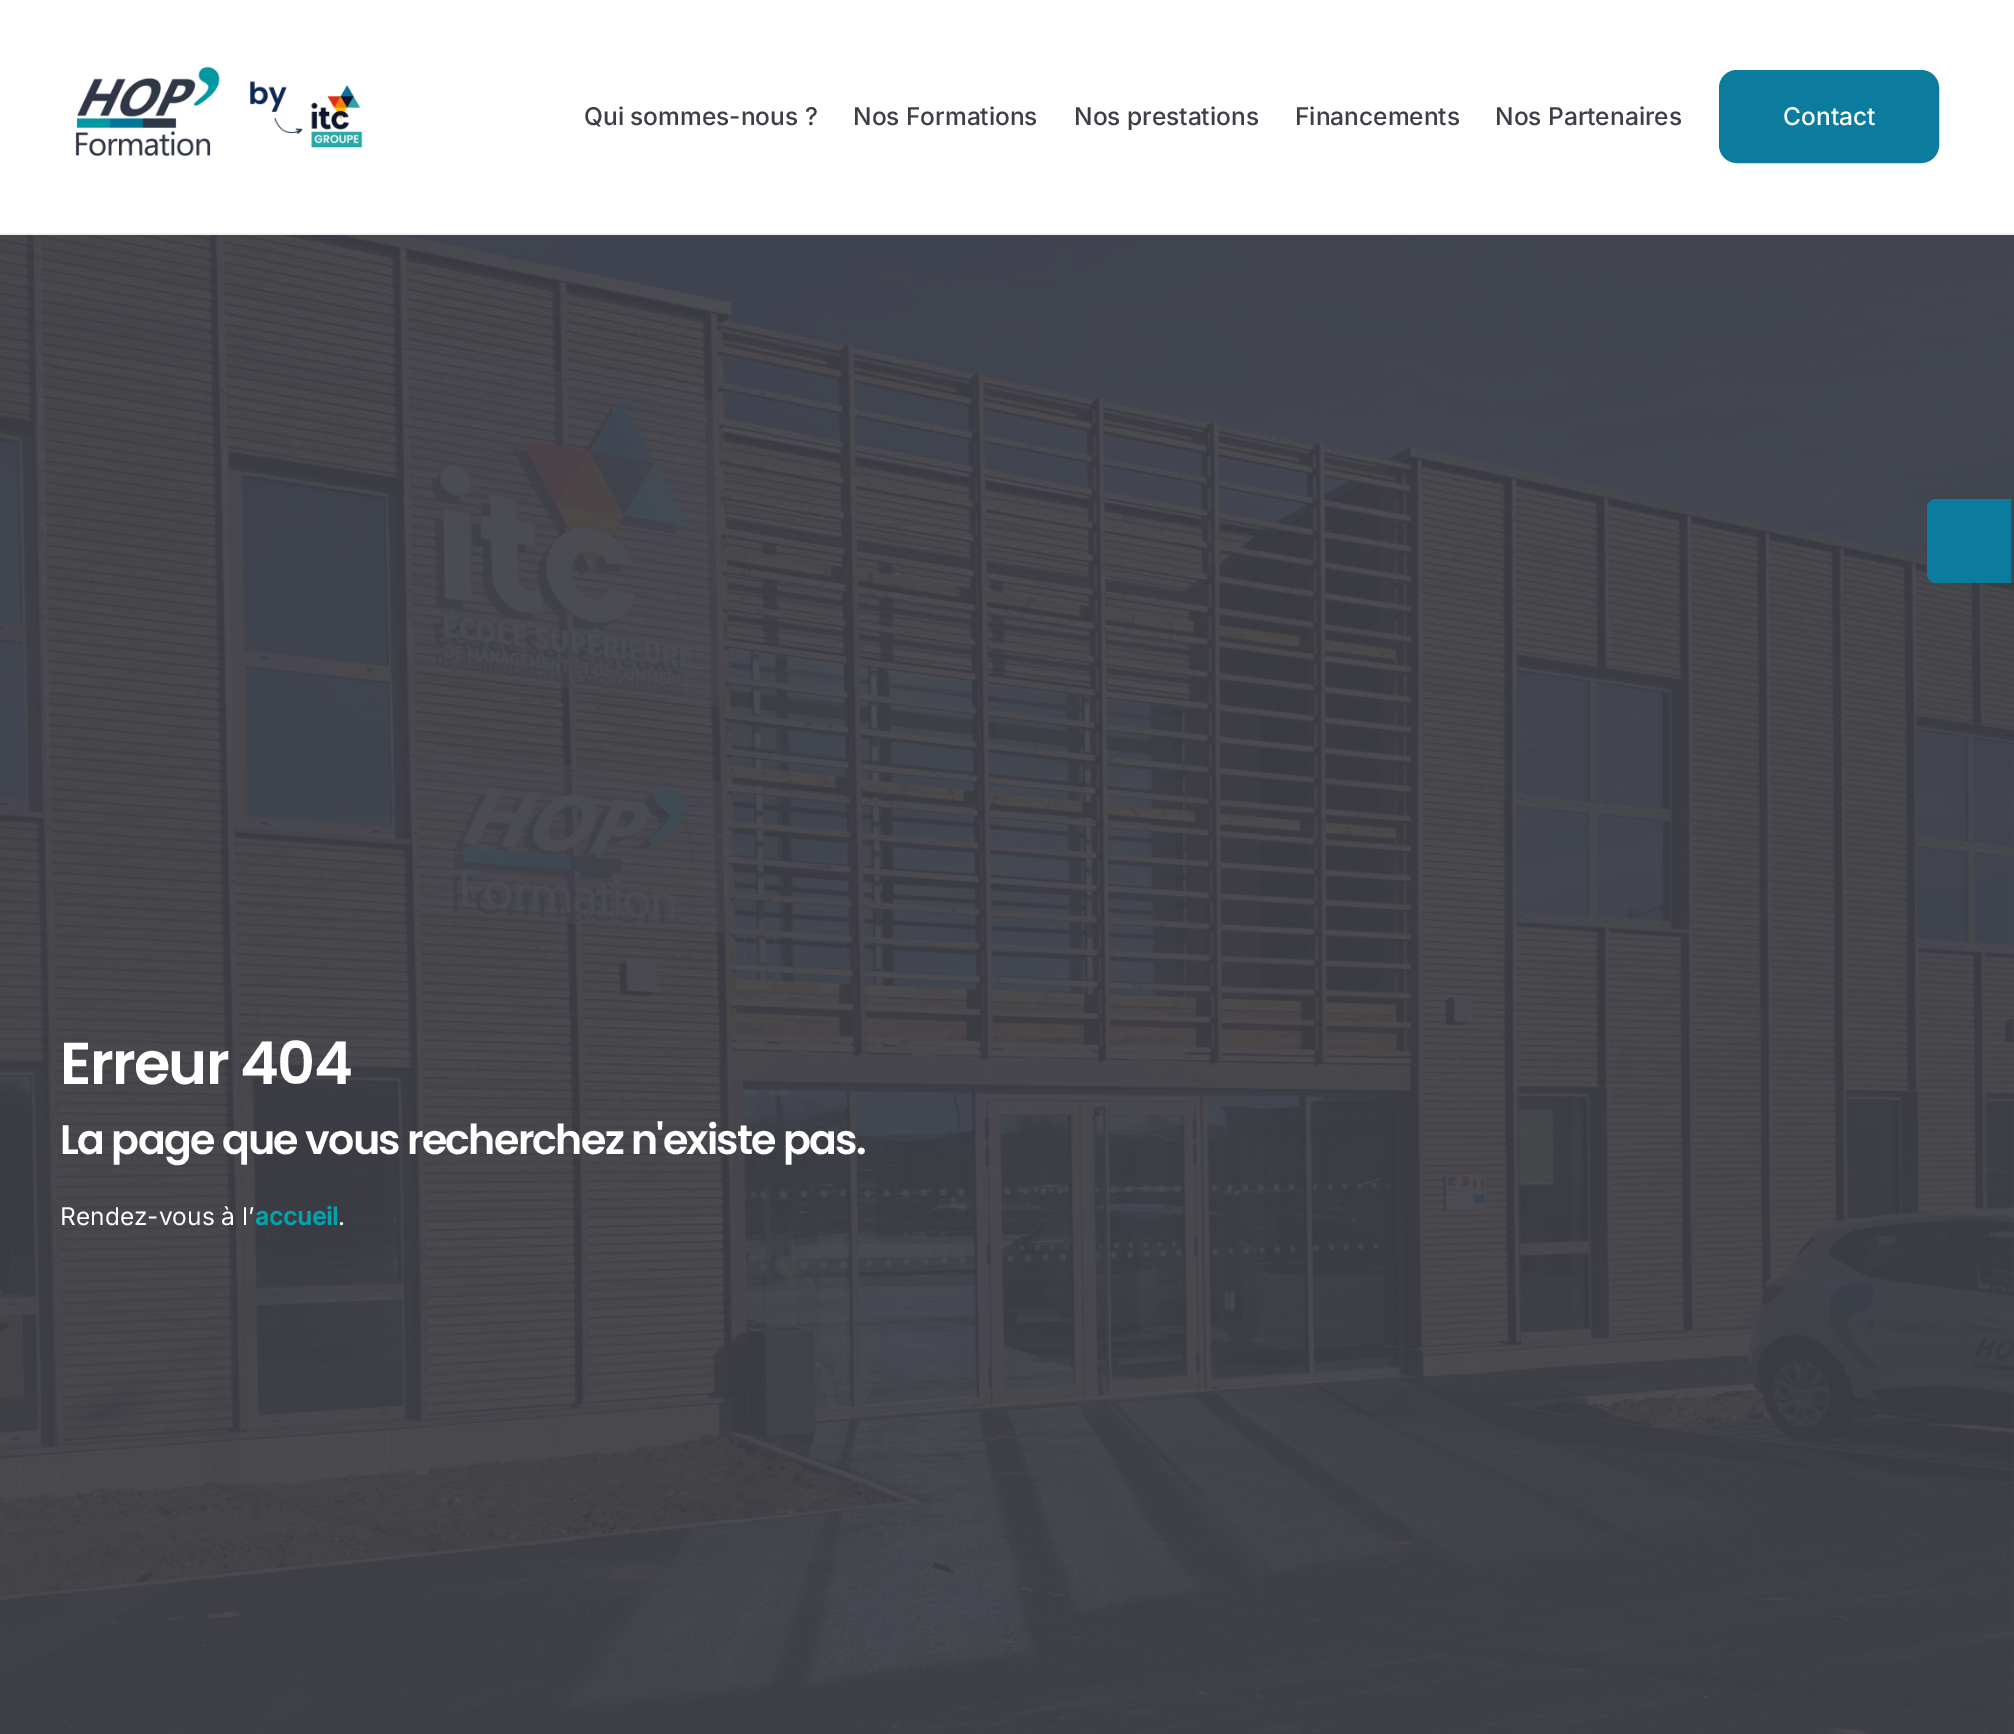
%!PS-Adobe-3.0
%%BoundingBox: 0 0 2014 1734
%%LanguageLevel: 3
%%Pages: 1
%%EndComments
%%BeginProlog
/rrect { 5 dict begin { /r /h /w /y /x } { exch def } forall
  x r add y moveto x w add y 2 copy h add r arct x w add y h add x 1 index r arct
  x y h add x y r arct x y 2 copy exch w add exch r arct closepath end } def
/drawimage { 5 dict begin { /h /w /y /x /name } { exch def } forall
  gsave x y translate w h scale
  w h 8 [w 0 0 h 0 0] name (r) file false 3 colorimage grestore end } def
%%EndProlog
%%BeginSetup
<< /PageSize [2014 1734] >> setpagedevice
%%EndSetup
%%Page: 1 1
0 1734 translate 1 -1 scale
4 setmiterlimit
1 setgray
0 0 2014 1734 rectfill
0.949 setgray
0 233 2014 2 rectfill
(images/1.raw) 75 66 288 90 drawimage
0.043 0.486 0.616 setrgbcolor
1729.5 80.5 199 72 7.5 rrect gsave fill grestore
21 setlinewidth
stroke
(images/2.raw) 0 235 2014 1499 drawimage
newpath 1936 499 moveto 2011 499 lineto 2011 583 lineto 1936 583 lineto 1931 583 1927 579 1927 574 curveto 1927 508 lineto 1927 503 1931 499 1936 499 curveto closepath fill
/Inter-Medium [24.5 0 0 -24.5 0 0] selectfont
0.239 0.243 0.275 setrgbcolor
584 125 moveto (Qui sommes-nous ?) show
853 125 moveto (Nos Formations) show
1074 125 moveto (Nos prestations) show
1295 125 moveto (Financements) show
1495 125 moveto (Nos Partenaires) show
1 setgray
1783 125 moveto (Contact) show
/Poppins-SemiBold [59 0 0 -59 0 0] selectfont
60 1084 moveto -1.75 0 (Erreur 404) ashow
/Poppins-SemiBold [41.2 0 0 -41.2 0 0] selectfont
60 1154 moveto -1.75 0 (La page que vous recherchez n'existe pas.) ashow
/Inter-Regular [24.5 0 0 -24.5 0 0] selectfont
60 1225 moveto (Rendez-vous à l’) show
/Inter-Bold [24.5 0 0 -24.5 0 0] selectfont
0.004 0.639 0.675 setrgbcolor
255 1225 moveto (accueil) show
/Inter-Regular [24.5 0 0 -24.5 0 0] selectfont
1 setgray
338 1225 moveto (.) show
showpage
%%EOF
